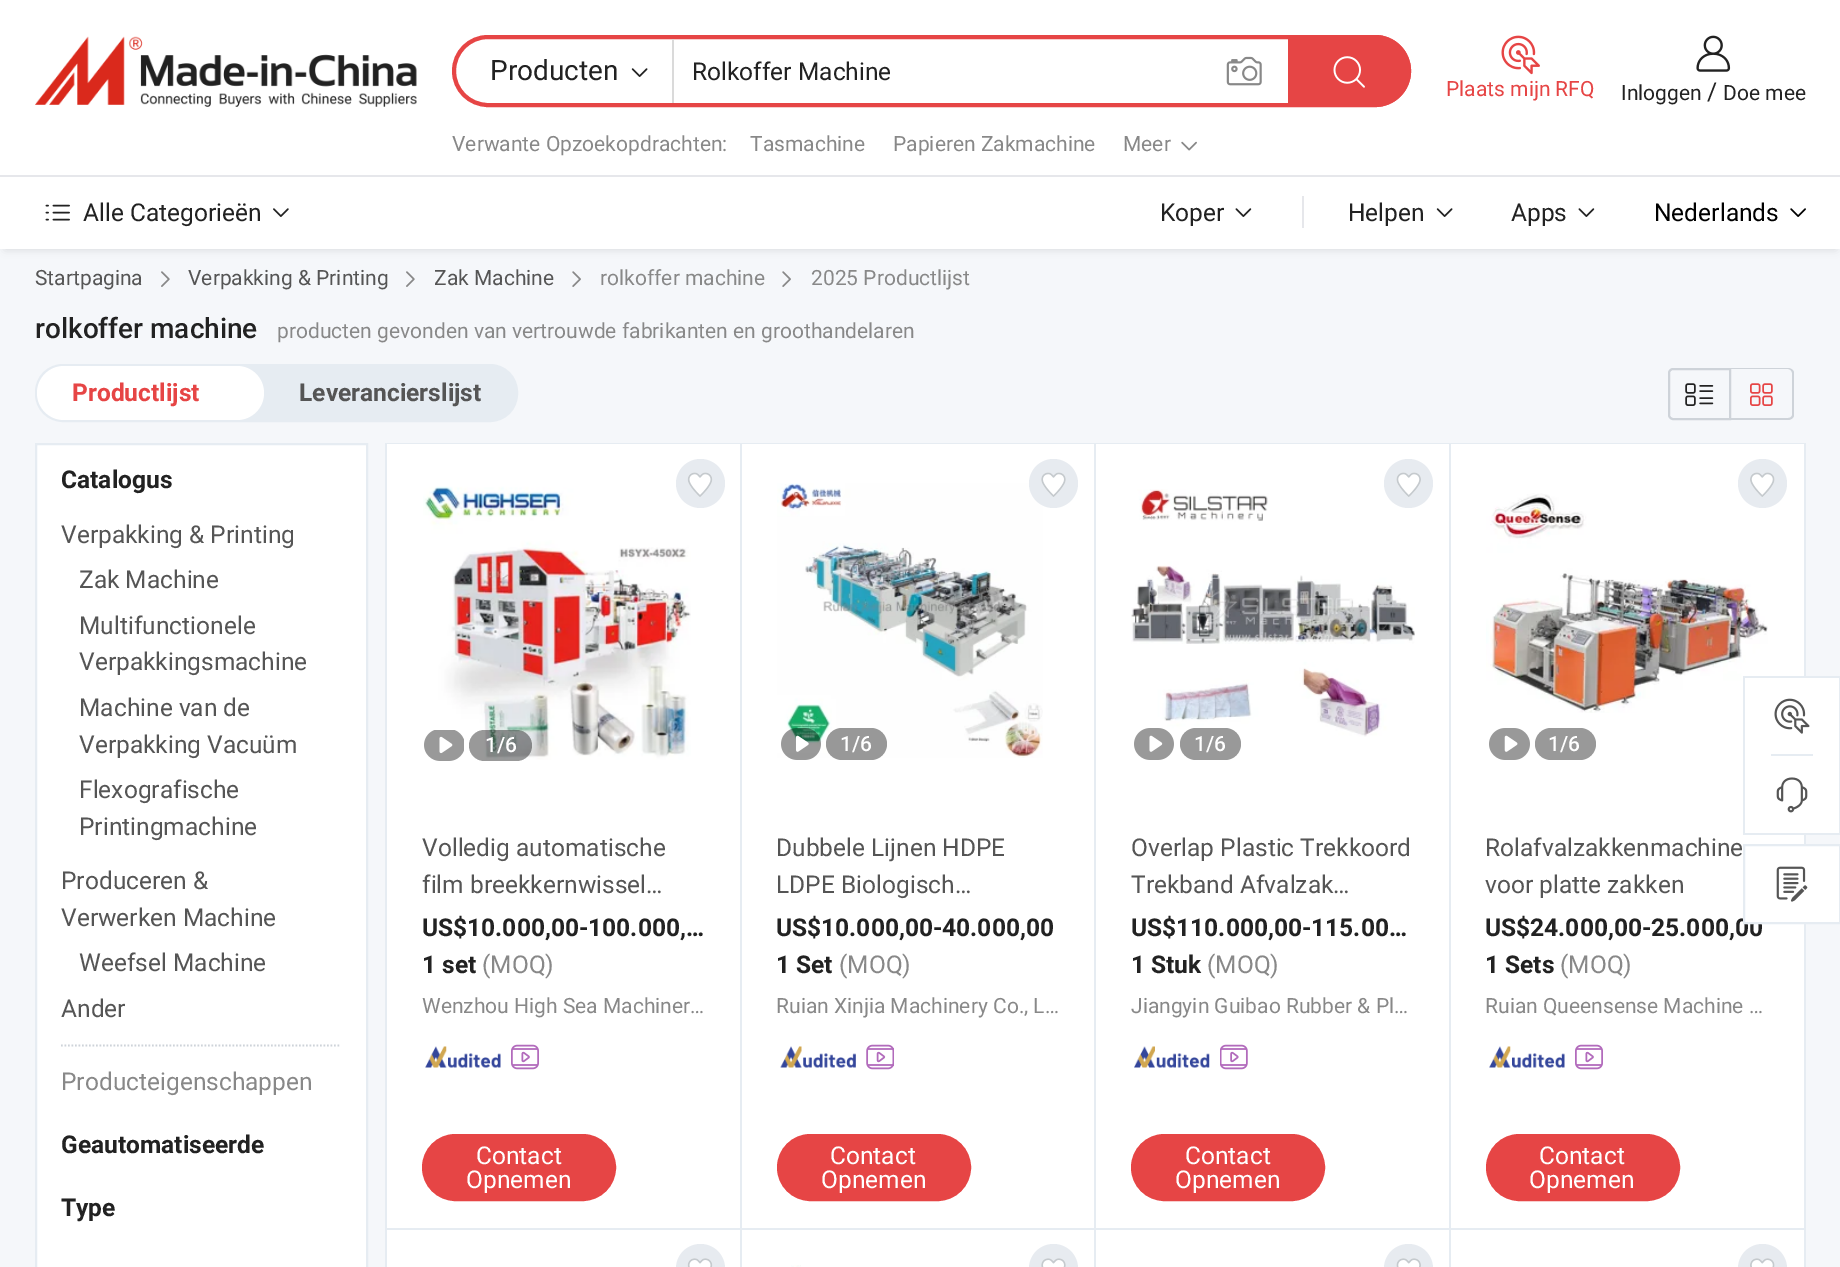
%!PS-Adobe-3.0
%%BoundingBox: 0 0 1840 1267
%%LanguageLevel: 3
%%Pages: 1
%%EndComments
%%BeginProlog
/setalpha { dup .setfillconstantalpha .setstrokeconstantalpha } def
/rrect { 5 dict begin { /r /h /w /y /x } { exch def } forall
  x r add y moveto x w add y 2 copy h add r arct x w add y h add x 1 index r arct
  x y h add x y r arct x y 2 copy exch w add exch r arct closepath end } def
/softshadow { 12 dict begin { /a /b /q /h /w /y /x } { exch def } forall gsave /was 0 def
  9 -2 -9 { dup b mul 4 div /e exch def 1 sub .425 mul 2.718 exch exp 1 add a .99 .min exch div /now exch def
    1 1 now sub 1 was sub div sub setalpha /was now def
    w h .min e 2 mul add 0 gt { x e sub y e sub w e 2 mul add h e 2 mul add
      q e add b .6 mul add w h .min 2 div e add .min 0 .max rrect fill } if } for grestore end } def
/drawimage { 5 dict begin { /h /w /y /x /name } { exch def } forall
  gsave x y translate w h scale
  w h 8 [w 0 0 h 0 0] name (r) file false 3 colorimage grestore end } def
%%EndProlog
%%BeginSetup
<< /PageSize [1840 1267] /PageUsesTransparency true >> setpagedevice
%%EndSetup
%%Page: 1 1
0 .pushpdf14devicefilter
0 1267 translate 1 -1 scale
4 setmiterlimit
0.961 0.969 0.98 setrgbcolor
0 0 1840 1267 rectfill
0 setgray
5 11 1831 238 0 4.5 0.12 softshadow
1 setgray
0 0 1840 249 rectfill
(images/1.raw) 35 36 382 71 drawimage
0.902 0.271 0.271 setrgbcolor
4 setlinewidth
454 37 955 68 34 rrect stroke
0.855 setgray
672 39 2 64 rectfill
(images/2.raw) 631 68 17 9 drawimage
(images/3.raw) 1226 56 36 30 drawimage
0.902 0.271 0.271 setrgbcolor
newpath 1288 35 moveto 1375 35 lineto 1395 35 1411 51 1411 71 curveto 1411 91 1395 107 1375 107 curveto 1288 107 lineto closepath fill
(images/4.raw) 1333 56 32 32 drawimage
(images/5.raw) 1181 141 16 10 drawimage
(images/6.raw) 1501 35 39 40 drawimage
(images/7.raw) 1696 35 35 37 drawimage
0.902 0.906 0.922 setrgbcolor
0 175 1840 2 rectfill
(images/8.raw) 45 204 25 17 drawimage
(images/9.raw) 273 208 16 9 drawimage
(images/10.raw) 1235 208 17 9 drawimage
1302 196 2 32 rectfill
(images/2.raw) 1436 208 17 9 drawimage
(images/10.raw) 1578 208 17 9 drawimage
(images/11.raw) 1790 208 16 9 drawimage
(images/12.raw) 161 271 9 16 drawimage
(images/12.raw) 406 271 9 16 drawimage
(images/13.raw) 572 271 9 16 drawimage
(images/13.raw) 782 271 9 16 drawimage
0.902 0.925 0.949 setrgbcolor
36 365 481 56 27 rrect gsave fill grestore
2 setlinewidth
stroke
gsave
37 366 479 54 26 rrect clip newpath
1 setgray
37 366 227 54 27 rrect fill
grestore
0.808 0.827 0.851 setrgbcolor
newpath 1673 369 moveto 1730 369 lineto 1730 419 lineto 1673 419 lineto 1671 419 1669 417 1669 415 curveto 1669 373 lineto 1669 371 1671 369 1673 369 curveto closepath stroke
(images/14.raw) 1685 383 29 23 drawimage
newpath 1731 368 moveto 1788 368 lineto 1791 368 1794 370 1794 373 curveto 1794 415 lineto 1794 418 1791 420 1788 420 curveto 1731 420 lineto closepath 1731 369 moveto 1788 369 lineto 1790 369 1792 371 1792 373 curveto 1792 415 lineto 1792 417 1790 418 1788 418 curveto 1731 418 lineto closepath eofill
(images/15.raw) 1750 383 23 23 drawimage
1 setgray
387 444 1417 823 rectfill
0.902 0.925 0.949 setrgbcolor
1804 443 2 824 rectfill
385 443 2 824 rectfill
newpath 385 443 moveto 744 443 lineto 742 444 lineto 387 444 lineto closepath fill
newpath 744 1230 moveto 385 1230 lineto 387 1228 lineto 742 1228 lineto closepath fill
(images/18.raw) 423 486 268 274 drawimage
0.906 0.922 0.941 setrgbcolor
newpath 700.5 483.5 24.5 0 360 arc closepath fill
(images/16.raw) 687 472 26 25 drawimage
(images/17.raw) 687 472 26 25 drawimage
(images/19.raw) 424 730 40 31 drawimage
0.4 setalpha
0 setgray
469 730 63 31 15.5 rrect fill
1 setalpha
(images/20.raw) 425 1046 76 22 drawimage
(images/21.raw) 511 1044 28 26 drawimage
0.902 0.271 0.271 setrgbcolor
423 1135 192 65 32.5 rrect gsave fill grestore
stroke
0.902 0.925 0.949 setrgbcolor
newpath 740 443 moveto 1097 443 lineto 1096 444 lineto 742 444 lineto closepath fill
newpath 1097 1230 moveto 740 1230 lineto 742 1228 lineto 1096 1228 lineto closepath fill
740 443 2 824 rectfill
(images/24.raw) 777 483 266 275 drawimage
0.906 0.922 0.941 setrgbcolor
newpath 1053.5 483.5 24.5 0 360 arc closepath fill
(images/22.raw) 1041 472 25 25 drawimage
(images/23.raw) 1041 472 25 25 drawimage
(images/25.raw) 781 728 40 32 drawimage
0.596 setgray
826 728 61 32 16 rrect fill
(images/26.raw) 780 1046 76 22 drawimage
(images/27.raw) 866 1044 28 26 drawimage
0.902 0.271 0.271 setrgbcolor
778 1135 192 65 32.5 rrect gsave fill grestore
stroke
0.902 0.925 0.949 setrgbcolor
newpath 1094 443 moveto 1452 443 lineto 1451 444 lineto 1096 444 lineto closepath fill
newpath 1452 1230 moveto 1094 1230 lineto 1096 1228 lineto 1451 1228 lineto closepath fill
1094 443 2 824 rectfill
(images/30.raw) 1131 489 284 248 drawimage
0.906 0.922 0.941 setrgbcolor
newpath 1408.5 483.5 24.5 0 360 arc closepath fill
(images/28.raw) 1396 472 25 25 drawimage
(images/29.raw) 1396 472 25 25 drawimage
(images/31.raw) 1134 728 40 32 drawimage
0.6 setgray
1180 728 61 32 16 rrect fill
(images/32.raw) 1134 1046 76 22 drawimage
(images/33.raw) 1220 1044 28 26 drawimage
0.902 0.271 0.271 setrgbcolor
1132 1135 192 65 32.5 rrect gsave fill grestore
stroke
0.902 0.925 0.949 setrgbcolor
newpath 1449 443 moveto 1806 443 lineto 1804 444 lineto 1451 444 lineto closepath fill
newpath 1806 1230 moveto 1449 1230 lineto 1451 1228 lineto 1804 1228 lineto closepath fill
1449 443 2 824 rectfill
(images/36.raw) 1486 493 282 220 drawimage
0.906 0.922 0.941 setrgbcolor
newpath 1762.5 483.5 24.5 0 360 arc closepath fill
(images/34.raw) 1750 472 25 25 drawimage
(images/35.raw) 1750 472 25 25 drawimage
(images/37.raw) 1489 728 41 32 drawimage
0.6 setgray
1535 728 61 32 16 rrect fill
(images/20.raw) 1489 1046 76 22 drawimage
(images/21.raw) 1575 1044 28 26 drawimage
0.902 0.271 0.271 setrgbcolor
1487 1135 192 65 32.5 rrect gsave fill grestore
stroke
0.906 0.922 0.941 setrgbcolor
676 1244 49 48 24.5 rrect fill
(images/38.raw) 687 1258 26 9 drawimage
(images/39.raw) 687 1258 26 9 drawimage
(images/40.raw) 791 1265 10 2 drawimage
1029 1244 49 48 24.5 rrect fill
(images/41.raw) 1041 1258 25 9 drawimage
(images/42.raw) 1041 1258 25 9 drawimage
1384 1244 49 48 24.5 rrect fill
(images/43.raw) 1396 1258 25 9 drawimage
(images/44.raw) 1396 1258 25 9 drawimage
1738 1244 49 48 24.5 rrect fill
(images/45.raw) 1750 1258 25 9 drawimage
(images/46.raw) 1750 1258 25 9 drawimage
1 setgray
newpath 36 444 moveto 367 444 lineto 367 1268 lineto 36 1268 lineto closepath gsave fill grestore
0.902 0.925 0.949 setrgbcolor
stroke
0.808 0.827 0.851 setrgbcolor
1.8 setlinewidth
[1.75 1.75] 0 setdash
newpath 61 1045.5 moveto 341 1045.5 lineto stroke
1 setgray
1804 678 35 155 rectfill
0.902 0.925 0.949 setrgbcolor
1743 676 97 2 rectfill
1839 676 1 159 rectfill
1743 676 2 78 rectfill
(images/47.raw) 1774 698 36 36 drawimage
1743 833 97 2 rectfill
1743 754 2 81 rectfill
1771 754 42 2 rectfill
(images/48.raw) 1776 777 32 36 drawimage
/Roboto-Regular [28 0 0 -28 0 0] selectfont
0.133 setgray
490 80 moveto (Producten) show
/Roboto-Regular [24.5 0 0 -24.5 0 0] selectfont
692 80 moveto (Rolkoffer Machine) show
/Roboto-Regular [21 0 0 -21 0 0] selectfont
0.533 setgray
452 151 moveto (Verwante Opzoekopdrachten:) show
750 151 moveto (Tasmachine) show
893 151 moveto (Papieren Zakmachine) show
1123 151 moveto (Meer) show
0.902 0.271 0.271 setrgbcolor
1446 96 moveto (Plaats mijn RFQ) show
0.133 setgray
1621 100 moveto (Inloggen) show
/Roboto-Regular [24.5 0 0 -24.5 0 0] selectfont
1707 100 moveto (/) show
/Roboto-Regular [21 0 0 -21 0 0] selectfont
1723 100 moveto (Doe mee) show
/Roboto-Regular [24.5 0 0 -24.5 0 0] selectfont
83 221 moveto (Alle Categorieën) show
1160 221 moveto (Koper) show
1348 221 moveto (Helpen) show
1511 221 moveto (Apps) show
0 setgray
1654 221 moveto (Nederlands) show
/Roboto-Regular [21 0 0 -21 0 0] selectfont
0.333 setgray
35 285 moveto (Startpagina) show
188 285 moveto (Verpakking & Printing) show
434 285 moveto (Zak Machine) show
0.533 setgray
600 285 moveto (rolkoffer machine) show
811 285 moveto (2025 Productlijst) show
/Roboto-Medium [28 0 0 -28 0 0] selectfont
0.133 setgray
35 338 moveto (rolkoffer machine) show
/Roboto-Regular [21 0 0 -21 0 0] selectfont
0.533 setgray
277 338 moveto (producten gevonden van vertrouwde fabrikanten en groothandelaren) show
/Roboto-Bold [24.5 0 0 -24.5 0 0] selectfont
0.902 0.271 0.271 setrgbcolor
72 401 moveto (Productlijst) show
0.333 setgray
299 401 moveto (Leverancierslijst) show
/Roboto-Medium [21 0 0 -21 0 0] selectfont
1 setgray
485 752 moveto (1/6) show
/Roboto-Regular [24.5 0 0 -24.5 0 0] selectfont
0.333 setgray
422 856 moveto (Volledig automatische) show
422 893 moveto (film breekkernwissel…) show
/Roboto-Bold [24.5 0 0 -24.5 0 0] selectfont
0.133 setgray
422 936 moveto (US$10.000,00-100.000,…) show
422 973 moveto (1 set) show
/Roboto-Regular [24.5 0 0 -24.5 0 0] selectfont
0.533 setgray
482 973 moveto (\(MOQ\)) show
/Roboto-Regular [21 0 0 -21 0 0] selectfont
422 1013 moveto (Wenzhou High Sea Machiner…) show
/Roboto-Regular [24.5 0 0 -24.5 0 0] selectfont
1 setgray
476 1164 moveto (Contact) show
466 1188 moveto (Opnemen) show
/Roboto-Medium [21 0 0 -21 0 0] selectfont
840 751 moveto (1/6) show
/Roboto-Regular [24.5 0 0 -24.5 0 0] selectfont
0.333 setgray
776 856 moveto (Dubbele Lijnen HDPE) show
776 893 moveto (LDPE Biologisch…) show
/Roboto-Bold [24.5 0 0 -24.5 0 0] selectfont
0.133 setgray
776 936 moveto (US$10.000,00-40.000,00) show
776 973 moveto (1 Set) show
/Roboto-Regular [24.5 0 0 -24.5 0 0] selectfont
0.533 setgray
839 973 moveto (\(MOQ\)) show
/Roboto-Regular [21 0 0 -21 0 0] selectfont
776 1013 moveto (Ruian Xinjia Machinery Co., L…) show
/Roboto-Regular [24.5 0 0 -24.5 0 0] selectfont
1 setgray
830 1164 moveto (Contact) show
821 1188 moveto (Opnemen) show
/Roboto-Medium [21 0 0 -21 0 0] selectfont
1194 751 moveto (1/6) show
/Roboto-Regular [24.5 0 0 -24.5 0 0] selectfont
0.333 setgray
1131 856 moveto (Overlap Plastic Trekkoord) show
1131 893 moveto (Trekband Afvalzak…) show
/Roboto-Bold [24.5 0 0 -24.5 0 0] selectfont
0.133 setgray
1131 936 moveto (US$110.000,00-115.00…) show
1131 973 moveto (1 Stuk) show
/Roboto-Regular [24.5 0 0 -24.5 0 0] selectfont
0.533 setgray
1207 973 moveto (\(MOQ\)) show
/Roboto-Regular [21 0 0 -21 0 0] selectfont
1131 1013 moveto (Jiangyin Guibao Rubber & Pl…) show
/Roboto-Regular [24.5 0 0 -24.5 0 0] selectfont
1 setgray
1185 1164 moveto (Contact) show
1175 1188 moveto (Opnemen) show
/Roboto-Medium [21 0 0 -21 0 0] selectfont
1548 751 moveto (1/6) show
/Roboto-Regular [24.5 0 0 -24.5 0 0] selectfont
0.333 setgray
1485 856 moveto (Rolafvalzakkenmachine) show
1485 893 moveto (voor platte zakken) show
/Roboto-Bold [24.5 0 0 -24.5 0 0] selectfont
0.133 setgray
1485 936 moveto (US$24.000,00-25.000,00) show
1485 973 moveto (1 Sets) show
/Roboto-Regular [24.5 0 0 -24.5 0 0] selectfont
0.533 setgray
1560 973 moveto (\(MOQ\)) show
/Roboto-Regular [21 0 0 -21 0 0] selectfont
1485 1013 moveto (Ruian Queensense Machine …) show
/Roboto-Regular [24.5 0 0 -24.5 0 0] selectfont
1 setgray
1539 1164 moveto (Contact) show
1529 1188 moveto (Opnemen) show
/Roboto-Bold [24.5 0 0 -24.5 0 0] selectfont
0.133 setgray
61 488 moveto (Catalogus) show
/Roboto-Regular [24.5 0 0 -24.5 0 0] selectfont
0.333 setgray
61 543 moveto (Verpakking & Printing) show
79 588 moveto (Zak Machine) show
79 634 moveto (Multifunctionele) show
79 670 moveto (Verpakkingsmachine) show
79 716 moveto (Machine van de) show
79 753 moveto (Verpakking Vacuüm) show
79 798 moveto (Flexografische) show
79 835 moveto (Printingmachine) show
61 889 moveto (Produceren &) show
61 926 moveto (Verwerken Machine) show
79 971 moveto (Weefsel Machine) show
61 1017 moveto (Ander) show
0.533 setgray
61 1090 moveto (Producteigenschappen) show
/Roboto-Bold [24.5 0 0 -24.5 0 0] selectfont
0.133 setgray
61 1153 moveto (Geautomatiseerde) show
61 1216 moveto (Type) show
1 setgray
newpath 1744 845 moveto 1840 845 lineto 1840 923 lineto 1744 923 lineto closepath gsave fill grestore
0.902 0.925 0.949 setrgbcolor
2 setlinewidth
[] 0 setdash
stroke
(images/49.raw) 1776 866 32 36 drawimage
.poppdf14devicefilter showpage
%%EOF
